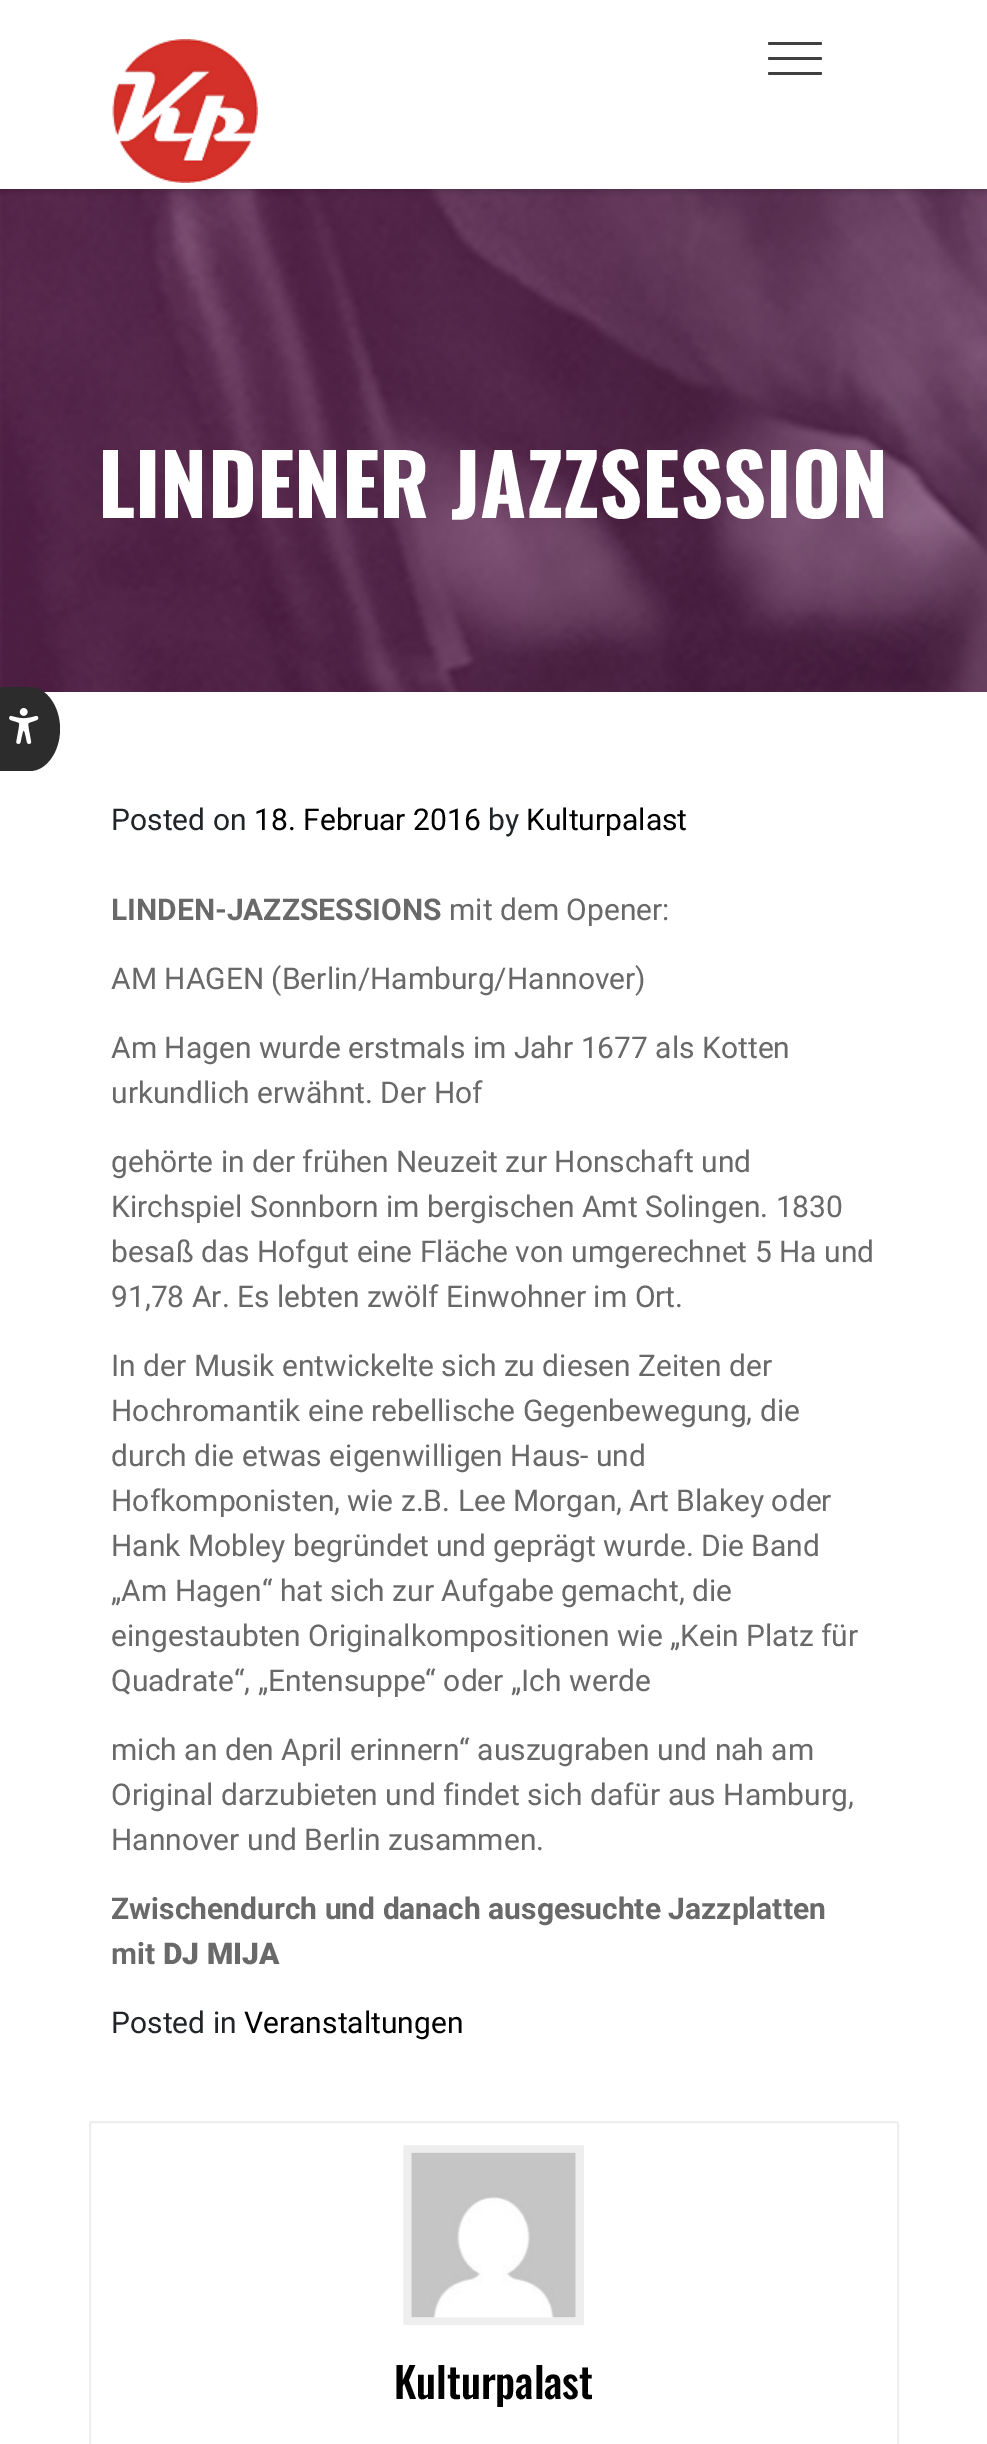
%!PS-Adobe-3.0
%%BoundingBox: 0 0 987 2444
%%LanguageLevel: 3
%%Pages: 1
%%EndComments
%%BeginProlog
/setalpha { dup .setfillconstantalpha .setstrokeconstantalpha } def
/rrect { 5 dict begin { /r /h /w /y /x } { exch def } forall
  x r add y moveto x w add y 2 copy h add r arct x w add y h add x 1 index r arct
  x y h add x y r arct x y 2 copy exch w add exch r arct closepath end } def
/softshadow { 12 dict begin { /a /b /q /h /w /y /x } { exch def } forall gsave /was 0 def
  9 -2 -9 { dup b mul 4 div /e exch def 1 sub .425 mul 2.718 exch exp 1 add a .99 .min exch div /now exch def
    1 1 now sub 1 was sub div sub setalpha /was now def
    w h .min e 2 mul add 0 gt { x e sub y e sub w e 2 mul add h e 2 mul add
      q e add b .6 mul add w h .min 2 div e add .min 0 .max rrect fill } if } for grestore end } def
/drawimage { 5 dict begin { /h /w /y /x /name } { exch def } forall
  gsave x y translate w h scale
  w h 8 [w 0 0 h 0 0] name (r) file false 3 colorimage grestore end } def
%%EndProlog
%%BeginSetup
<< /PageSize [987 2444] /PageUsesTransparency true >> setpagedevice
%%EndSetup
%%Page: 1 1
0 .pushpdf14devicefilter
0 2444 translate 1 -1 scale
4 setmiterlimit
1 setgray
0 0 987 2444 rectfill
(images/3.raw) 0 189 987 503 drawimage
0.173 setgray
newpath 0 687 moveto 30 687 lineto 46 687 60 706 60 729 curveto 60 752 46 771 30 771 curveto 0 771 lineto closepath fill
(images/1.raw) 9 708 30 36 drawimage
gsave
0 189 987 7 rectclip
0 setgray
0 2 987 189 0 4 0.18 softshadow
grestore
(images/2.raw) 112 39 146 144 drawimage
0.251 setgray
768 42 54 3 1.5 rrect fill
768 57 54 3 1.5 rrect fill
768 72 54 3 1.5 rrect fill
0.933 setgray
2 setlinewidth
90 2122 808 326 2 rrect stroke
7.5 setlinewidth
newpath 407 2149 moveto 580 2149 lineto 580 2321 lineto 407 2321 lineto closepath stroke
(images/4.raw) 410 2152 167 166 drawimage
/Oswald-Bold [84 0 0 -84 0 0] selectfont
1 setgray
98 518 moveto (LINDENER JAZZSESSION) show
/Roboto-Regular [30 0 0 -30 0 0] selectfont
0.129 0.145 0.161 setrgbcolor
111 830 moveto (Posted on) show
0 setgray
254 830 moveto (18. Februar 2016) show
0.129 0.145 0.161 setrgbcolor
488 830 moveto (by) show
0 setgray
526 830 moveto (Kulturpalast) show
/Roboto-Bold [30 0 0 -30 0 0] selectfont
0.412 setgray
111 920 moveto (LINDEN-JAZZSESSIONS) show
/Roboto-Regular [30 0 0 -30 0 0] selectfont
449 920 moveto (mit dem Opener:) show
111 989 moveto (AM HAGEN \(Berlin/Hamburg/Hannover\)) show
111 1058 moveto (Am Hagen wurde erstmals im Jahr 1677 als Kotten) show
111 1103 moveto (urkundlich erwähnt. Der Hof) show
111 1172 moveto (gehörte in der frühen Neuzeit zur Honschaft und) show
111 1217 moveto (Kirchspiel Sonnborn im bergischen Amt Solingen. 1830) show
111 1262 moveto (besaß das Hofgut eine Fläche von umgerechnet 5 Ha und) show
111 1307 moveto (91,78 Ar. Es lebten zwölf Einwohner im Ort.) show
111 1376 moveto (In der Musik entwickelte sich zu diesen Zeiten der) show
111 1421 moveto (Hochromantik eine rebellische Gegenbewegung, die) show
111 1466 moveto (durch die etwas eigenwilligen Haus- und) show
111 1511 moveto (Hofkomponisten, wie z.B. Lee Morgan, Art Blakey oder) show
111 1556 moveto (Hank Mobley begründet und geprägt wurde. Die Band) show
111 1601 moveto („Am Hagen“ hat sich zur Aufgabe gemacht, die) show
111 1646 moveto (eingestaubten Originalkompositionen wie „Kein Platz für) show
111 1691 moveto (Quadrate“, „Entensuppe“ oder „Ich werde) show
111 1760 moveto (mich an den April erinnern“ auszugraben und nah am) show
111 1805 moveto (Original darzubieten und findet sich dafür aus Hamburg,) show
111 1850 moveto (Hannover und Berlin zusammen.) show
/Roboto-Bold [30 0 0 -30 0 0] selectfont
111 1919 moveto (Zwischendurch und danach ausgesuchte Jazzplatten) show
111 1964 moveto (mit) show
/Roboto-Black [30 0 0 -30 0 0] selectfont
163 1964 moveto (DJ MIJA) show
/Roboto-Regular [30 0 0 -30 0 0] selectfont
0.129 0.145 0.161 setrgbcolor
111 2033 moveto (Posted in) show
0 setgray
244 2033 moveto (Veranstaltungen) show
/Oswald-Medium [42 0 0 -42 0 0] selectfont
394 2399 moveto (Kulturpalast) show
.poppdf14devicefilter showpage
%%EOF
